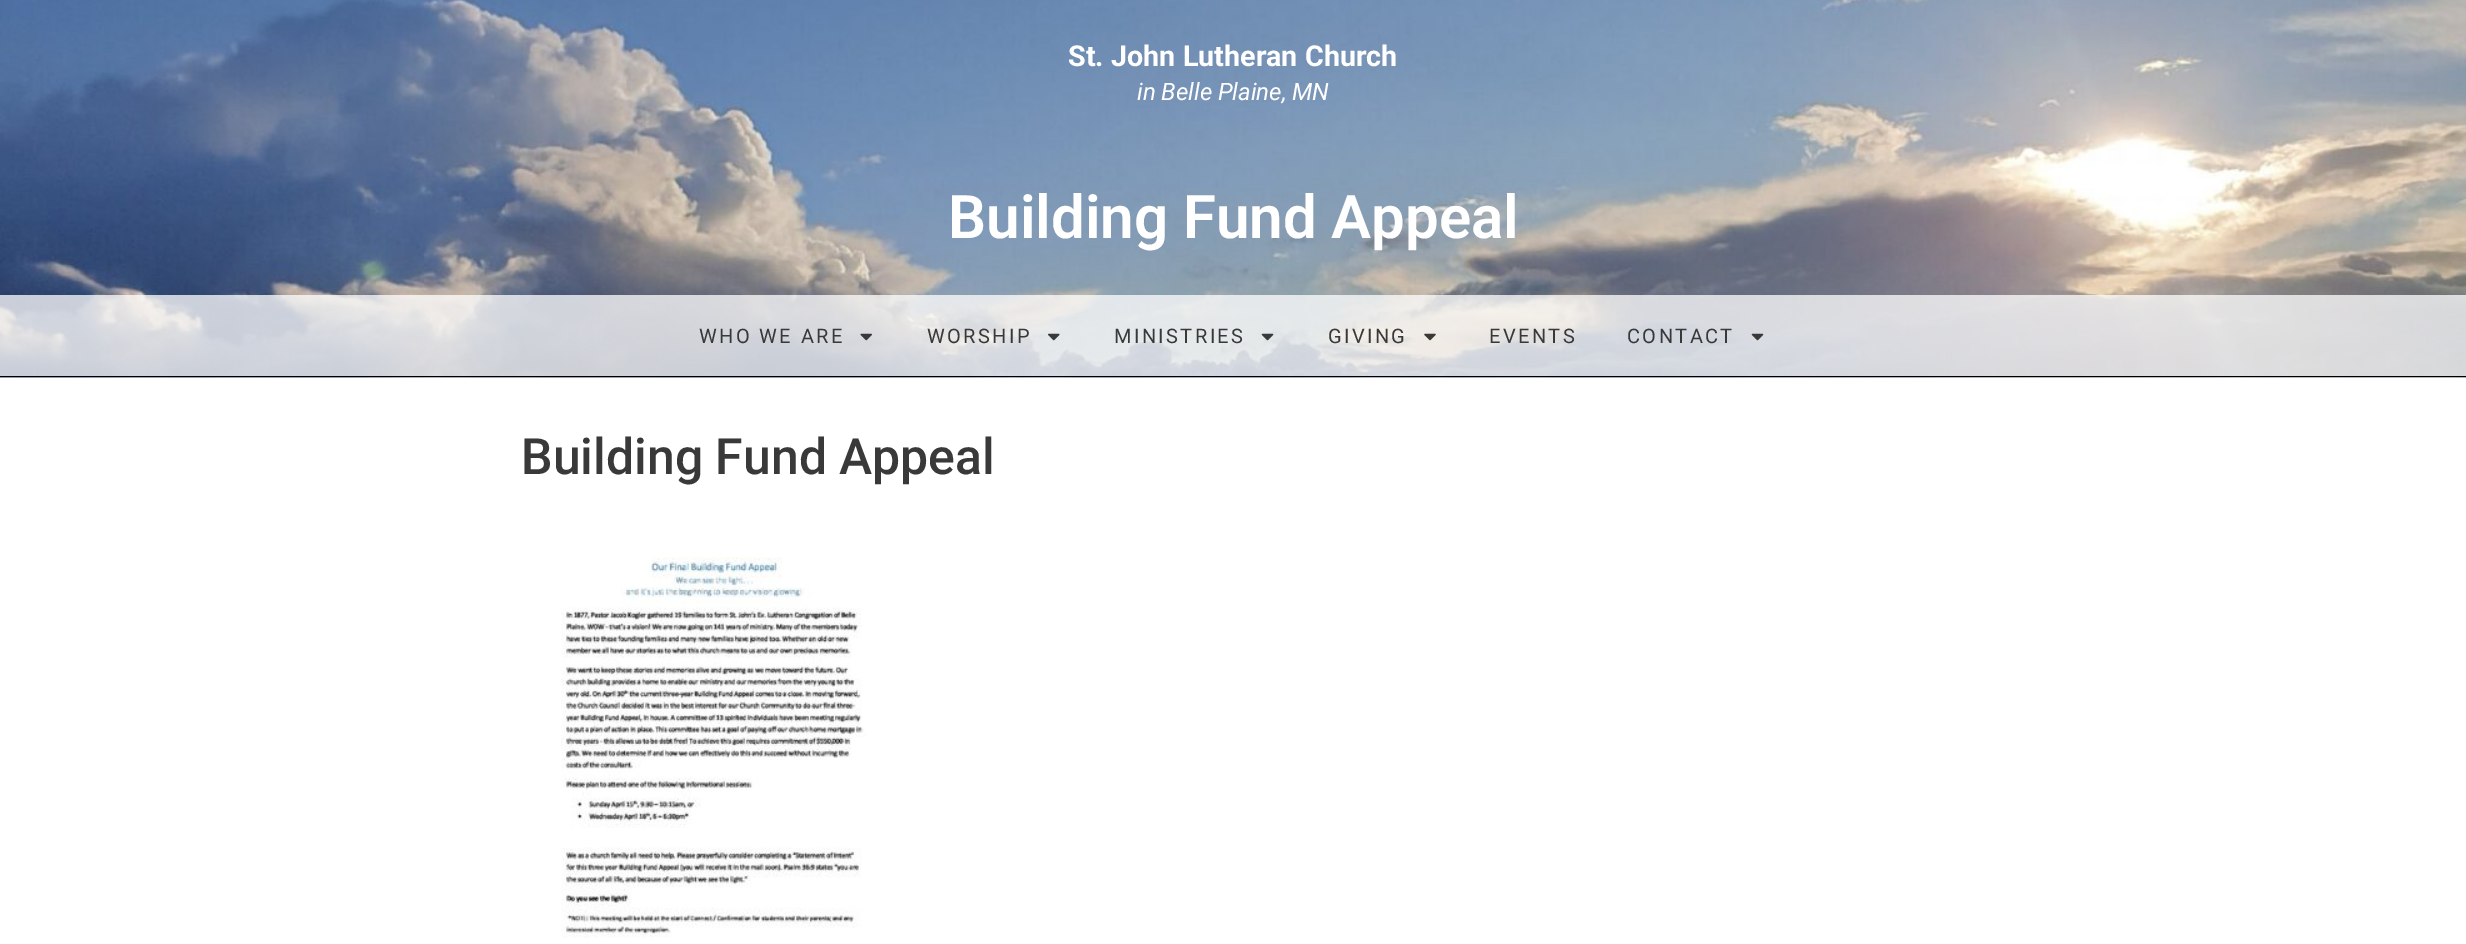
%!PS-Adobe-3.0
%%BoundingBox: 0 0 2466 944
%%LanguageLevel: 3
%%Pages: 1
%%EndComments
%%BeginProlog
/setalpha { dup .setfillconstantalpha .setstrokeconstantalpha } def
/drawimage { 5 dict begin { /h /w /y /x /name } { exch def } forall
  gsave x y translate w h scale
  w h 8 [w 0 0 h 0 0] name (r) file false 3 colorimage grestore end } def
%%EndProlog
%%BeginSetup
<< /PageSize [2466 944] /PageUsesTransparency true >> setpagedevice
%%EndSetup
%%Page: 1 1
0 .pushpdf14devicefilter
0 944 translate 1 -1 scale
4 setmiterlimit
1 setgray
0 0 2466 944 rectfill
(images/1.raw) 0 0 2466 378 drawimage
0 setgray
0 376 2466 1 rectfill
0.75 setalpha
1 setgray
0 295 2466 81 rectfill
1 setalpha
(images/2.raw) 860 333 12 8 drawimage
(images/3.raw) 1048 333 12 8 drawimage
(images/4.raw) 1261 333 13 8 drawimage
(images/5.raw) 1424 333 12 8 drawimage
(images/6.raw) 1751 333 13 8 drawimage
(images/7.raw) 561 557 305 381 drawimage
/Roboto-Bold [28.75 0 0 -28.75 0 0] selectfont
1068 66 moveto (St. John Lutheran Church) show
/Roboto-Italic [24 0 0 -24 0 0] selectfont
1137 100 moveto (in Belle Plaine, MN) show
/Roboto-SemiBold [60 0 0 -60 0 0] selectfont
948 238 moveto (Building Fund Appeal) show
/Roboto-Regular [20 0 0 -20 0 0] selectfont
0.224 setgray
699 343 moveto 2.4 0 (WHO WE ARE) ashow
927 343 moveto 2.4 0 (WORSHIP) ashow
1114 343 moveto 2.4 0 (MINISTRIES) ashow
1328 343 moveto 2.4 0 (GIVING) ashow
1489 343 moveto 2.4 0 (EVENTS) ashow
1627 343 moveto 2.4 0 (CONTACT) ashow
/Roboto-Medium [50 0 0 -50 0 0] selectfont
521 474 moveto (Building Fund Appeal) show
.poppdf14devicefilter showpage
%%EOF
